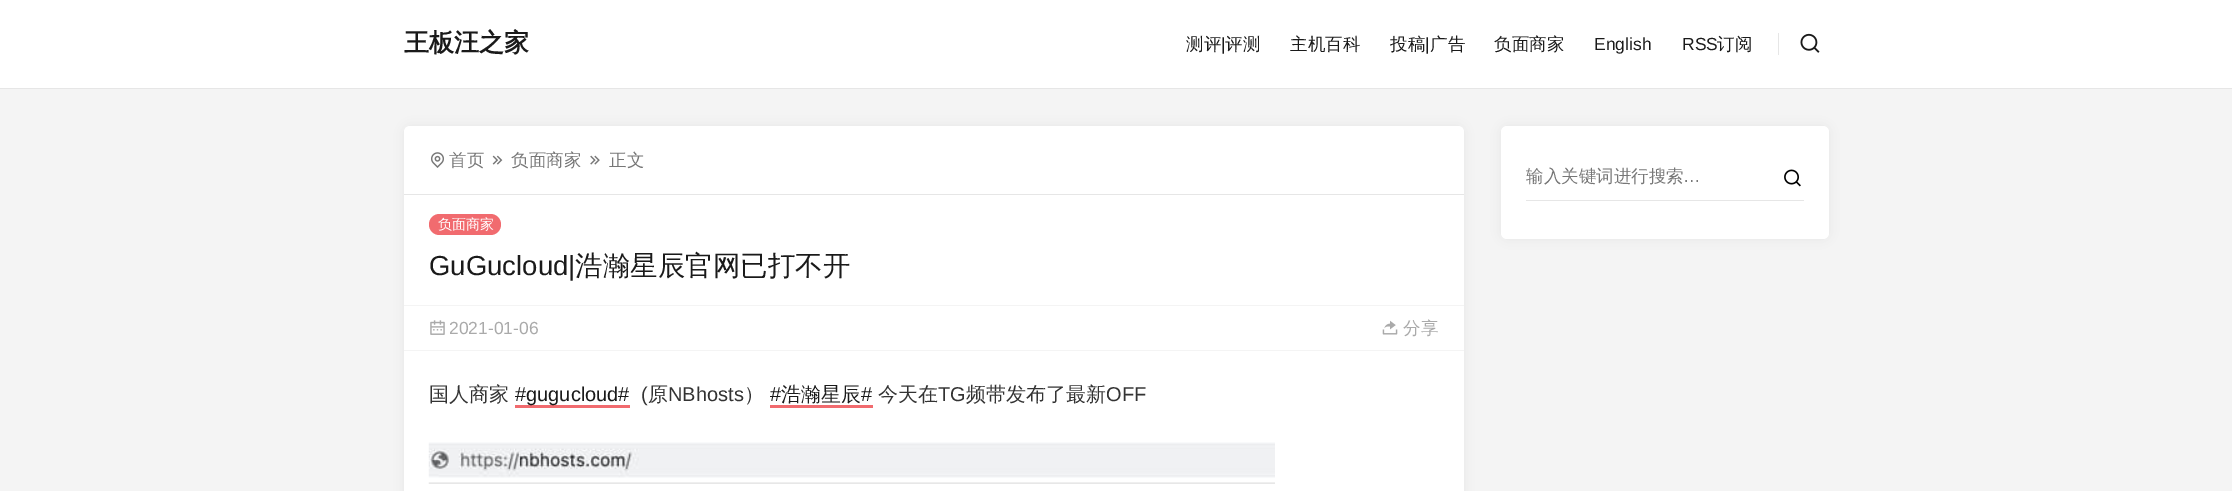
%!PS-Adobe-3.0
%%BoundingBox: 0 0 2232 491
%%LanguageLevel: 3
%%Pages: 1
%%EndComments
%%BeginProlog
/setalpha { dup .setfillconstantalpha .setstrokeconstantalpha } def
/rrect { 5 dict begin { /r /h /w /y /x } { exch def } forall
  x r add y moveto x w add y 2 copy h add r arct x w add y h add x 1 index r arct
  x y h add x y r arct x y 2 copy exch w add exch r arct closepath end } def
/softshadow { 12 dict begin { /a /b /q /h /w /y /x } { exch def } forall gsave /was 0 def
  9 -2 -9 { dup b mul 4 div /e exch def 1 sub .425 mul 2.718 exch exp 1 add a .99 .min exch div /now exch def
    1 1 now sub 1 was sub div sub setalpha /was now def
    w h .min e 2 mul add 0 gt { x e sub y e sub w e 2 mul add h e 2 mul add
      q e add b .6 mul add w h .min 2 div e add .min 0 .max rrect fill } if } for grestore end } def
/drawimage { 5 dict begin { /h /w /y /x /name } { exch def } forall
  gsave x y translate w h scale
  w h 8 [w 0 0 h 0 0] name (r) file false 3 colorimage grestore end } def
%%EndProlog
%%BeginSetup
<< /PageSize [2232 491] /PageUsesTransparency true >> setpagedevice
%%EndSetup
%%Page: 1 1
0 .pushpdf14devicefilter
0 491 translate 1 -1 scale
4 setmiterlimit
0.957 setgray
0 0 2232 491 rectfill
1 setgray
0 0 2232 88 rectfill
0.902 setgray
0 88 2232 1 rectfill
1778 33 1 22 rectfill
(images/1.raw) 1800 33 20 20 drawimage
0 setgray
404 126 1060 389 6 6 0.05 softshadow
1 setgray
newpath 410 126 moveto 1458 126 lineto 1461.5 126 1464 128.5 1464 132 curveto 1464 195 lineto 404 195 lineto 404 132 lineto 404 128.5 406.5 126 410 126 curveto closepath fill
0.902 setgray
404 194 1060 1 rectfill
(images/2.raw) 431 152 13 16 drawimage
(images/3.raw) 492 155 11 10 drawimage
(images/4.raw) 590 155 10 10 drawimage
1 setgray
404 195 1060 110 rectfill
0.945 0.42 0.435 setrgbcolor
429 214 72 21 10.5 rrect fill
1 setgray
404 306 1060 44 rectfill
0.957 setgray
404 305 1060 1 rectfill
404 350 1060 1 rectfill
(images/5.raw) 430 320 15 15 drawimage
(images/6.raw) 1382 320 16 15 drawimage
1 setgray
404 351 1060 140 rectfill
0.945 0.42 0.435 setrgbcolor
515 405 115 3 rectfill
770 405 103 3 rectfill
(images/7.raw) 428 442 847 42 drawimage
0 setgray
1501 126 328 113 6 6 0.05 softshadow
1 setgray
1501 126 328 113 6 rrect fill
0.902 setgray
1526 200 278 1 rectfill
(images/8.raw) 1784 169 17 18 drawimage
/WenQuanYiZenHei-Bold [25 0 0 -25 0 0] selectfont
0.102 setgray
404 51 moveto (王板汪之家) show
/WenQuanYiZenHei-Medium [17.5 0 0 -17.5 0 0] selectfont
1186 50 moveto (测评) show
/LiberationSans-Regular [17.5 0 0 -17.5 0 0] selectfont
1221 50 moveto (|) show
/WenQuanYiZenHei-Medium [17.5 0 0 -17.5 0 0] selectfont
1225 50 moveto (评测) show
1290 50 moveto (主机百科) show
1390 50 moveto (投稿) show
/LiberationSans-Regular [17.5 0 0 -17.5 0 0] selectfont
1425 50 moveto (|) show
/WenQuanYiZenHei-Medium [17.5 0 0 -17.5 0 0] selectfont
1430 50 moveto (广告) show
1494 50 moveto (负面商家) show
/LiberationSans-Regular [17.5 0 0 -17.5 0 0] selectfont
1594 50 moveto (English) show
1682 50 moveto (RSS) show
/WenQuanYiZenHei-Medium [17.5 0 0 -17.5 0 0] selectfont
1717 50 moveto (订阅) show
0.467 setgray
449 166 moveto (首页) show
511 166 moveto (负面商家) show
609 166 moveto (正文) show
/WenQuanYiZenHei-Medium [14 0 0 -14 0 0] selectfont
1 setgray
438 229 moveto (负面商家) show
/LiberationSans-Regular [27.5 0 0 -27.5 0 0] selectfont
0.102 setgray
429 275 moveto (GuGucloud|) show
/WenQuanYiZenHei-Medium [27.5 0 0 -27.5 0 0] selectfont
575 275 moveto (浩瀚星辰官网已打不开) show
/LiberationSans-Regular [17.5 0 0 -17.5 0 0] selectfont
0.667 setgray
449 334 moveto (2021-01-06) show
/WenQuanYiZenHei-Medium [17.5 0 0 -17.5 0 0] selectfont
1403 334 moveto (分享) show
/WenQuanYiZenHei-Medium [20 0 0 -20 0 0] selectfont
0.2 setgray
429 401 moveto (国人商家) show
/LiberationSans-Regular [20 0 0 -20 0 0] selectfont
0.102 setgray
515 401 moveto (#gugucloud#) show
0.2 setgray
641 401 moveto (\() show
/WenQuanYiZenHei-Medium [20 0 0 -20 0 0] selectfont
648 401 moveto (原) show
/LiberationSans-Regular [20 0 0 -20 0 0] selectfont
668 401 moveto (NBhosts) show
/WenQuanYiZenHei-Medium [20 0 0 -20 0 0] selectfont
744 401 moveto (）) show
/LiberationSans-Regular [20 0 0 -20 0 0] selectfont
0.102 setgray
770 401 moveto (#) show
/WenQuanYiZenHei-Medium [20 0 0 -20 0 0] selectfont
781 401 moveto (浩瀚星辰) show
/LiberationSans-Regular [20 0 0 -20 0 0] selectfont
861 401 moveto (#) show
/WenQuanYiZenHei-Medium [20 0 0 -20 0 0] selectfont
0.2 setgray
878 401 moveto (今天在) show
/LiberationSans-Regular [20 0 0 -20 0 0] selectfont
938 401 moveto (TG) show
/WenQuanYiZenHei-Medium [20 0 0 -20 0 0] selectfont
966 401 moveto (频带发布了最新) show
/LiberationSans-Regular [20 0 0 -20 0 0] selectfont
1106 401 moveto (OFF) show
gsave
1526 166 273 23 rectclip
/WenQuanYiZenHei-Medium [17.5 0 0 -17.5 0 0] selectfont
0.467 setgray
1526 182 moveto (输入关键词进行搜索) show
grestore
/LiberationSans-Regular [17.5 0 0 -17.5 0 0] selectfont
0.467 setgray
1683 182 moveto (…) show
.poppdf14devicefilter showpage
%%EOF
